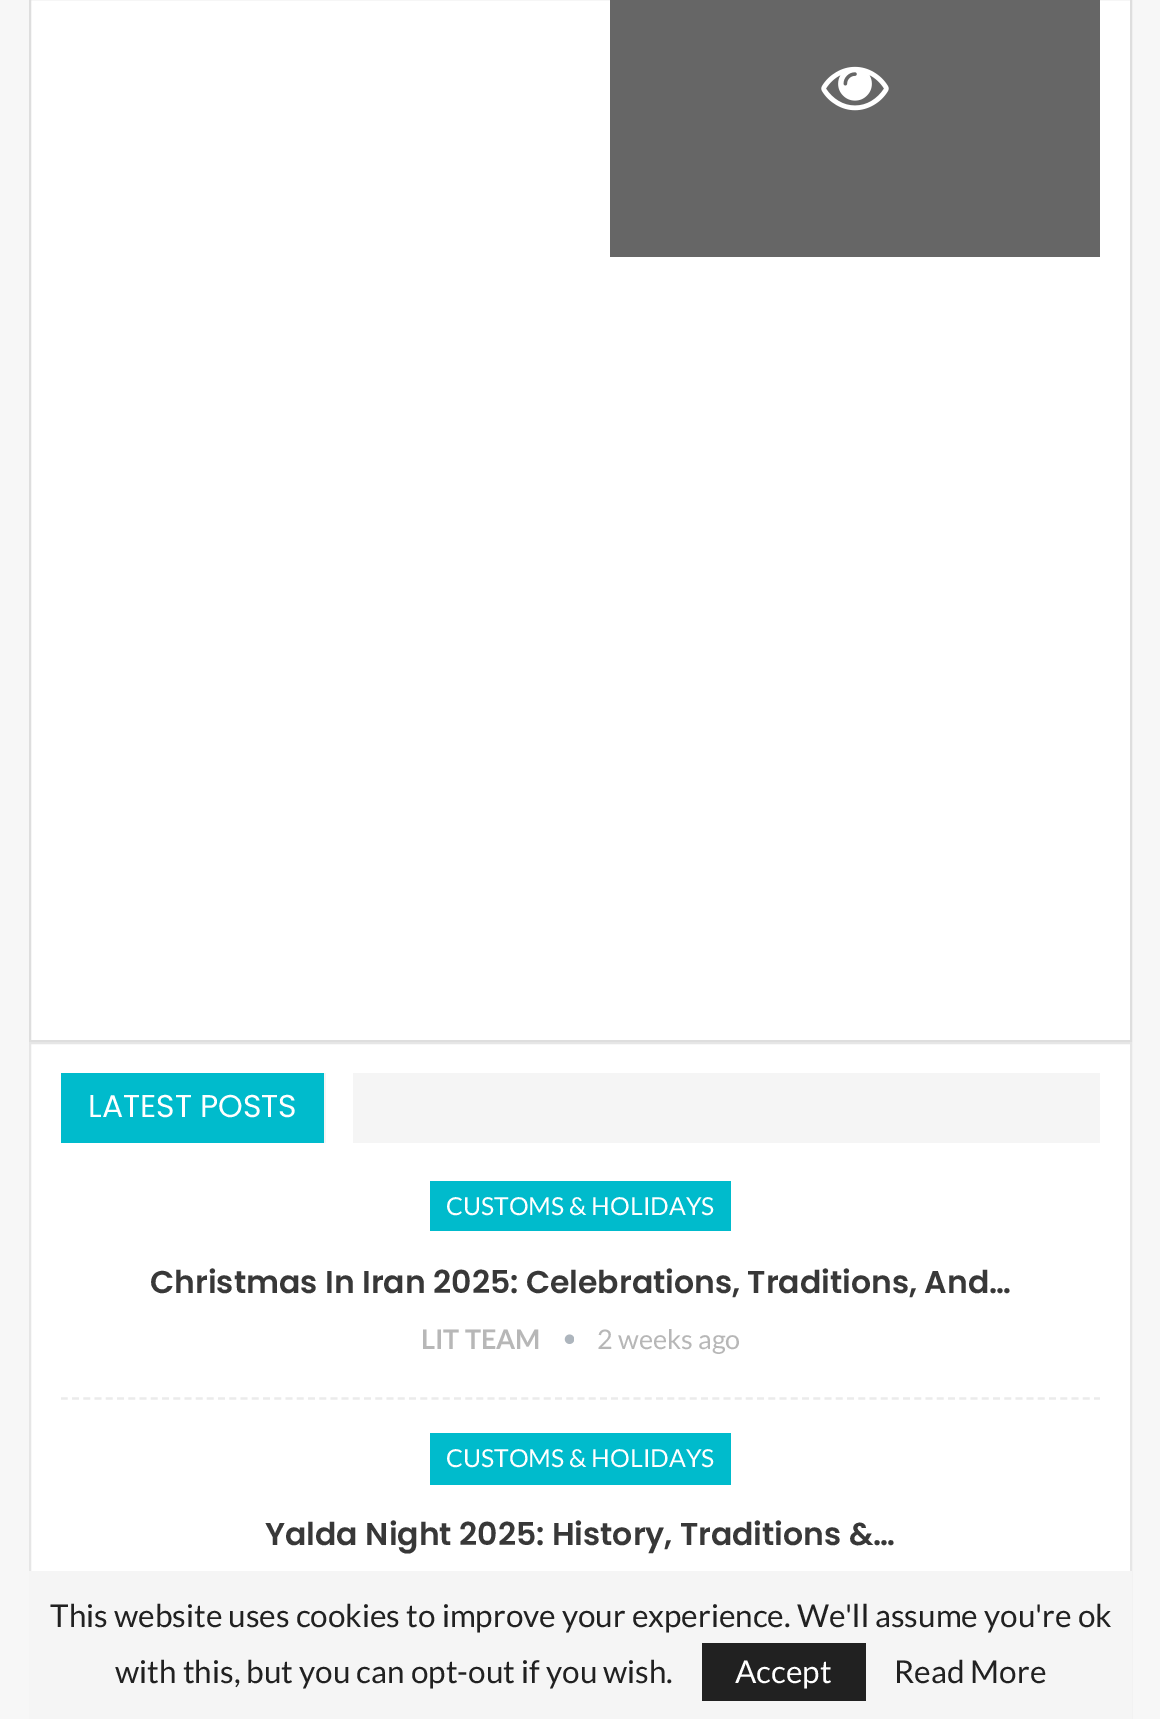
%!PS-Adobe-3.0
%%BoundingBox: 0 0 1160 1719
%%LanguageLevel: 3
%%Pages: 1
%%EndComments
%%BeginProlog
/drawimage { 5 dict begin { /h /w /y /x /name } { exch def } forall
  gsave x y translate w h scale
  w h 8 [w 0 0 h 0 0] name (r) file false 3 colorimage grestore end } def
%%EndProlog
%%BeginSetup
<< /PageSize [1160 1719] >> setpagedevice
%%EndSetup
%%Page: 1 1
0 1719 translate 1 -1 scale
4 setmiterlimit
0.969 setgray
0 0 1160 1719 rectfill
1 setgray
newpath 30 -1 moveto 1131 -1 lineto 1131 1041 lineto 30 1041 lineto closepath gsave fill grestore
0.871 setgray
2 setlinewidth
stroke
0.4 setgray
610 0 490 257 rectfill
(images/1.raw) 821 66 68 45 drawimage
1 setgray
31 1044 1099 527 rectfill
0.902 setgray
30 1043 1101 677 rectstroke
0 0.733 0.8 setrgbcolor
61 1073 263 70 rectfill
0.961 setgray
324 1073 776 70 rectfill
1 setgray
326 1073 27 70 rectfill
0.922 setgray
2.2 setlinewidth
[6.75 4.48] 0 setdash
newpath 61 1398.5 moveto 1100 1398.5 lineto stroke
0 0.733 0.8 setrgbcolor
430 1181 301 50 rectfill
(images/2.raw) 564 1334 10 10 drawimage
430 1433 301 52 rectfill
0.961 setgray
29 1571 1103 148 rectfill
0.129 setgray
702 1643 164 58 rectfill
/Poppins-Regular [31.5 0 0 -31.5 0 0] selectfont
1 setgray
88 1117 moveto (LATEST POSTS) show
/Lato-Regular [24.75 0 0 -24.75 0 0] selectfont
446 1215 moveto (CUSTOMS & HOLIDAYS) show
/Poppins-SemiBold [31.5 0 0 -31.5 0 0] selectfont
0.22 setgray
150 1293 moveto (Christmas In Iran 2025: Celebrations, Traditions, And…) show
/Lato-Bold [27 0 0 -27 0 0] selectfont
0.718 setgray
421 1349 moveto (LIT TEAM) show
/Lato-Regular [27 0 0 -27 0 0] selectfont
597 1349 moveto (2 weeks ago) show
/Lato-Regular [24.75 0 0 -24.75 0 0] selectfont
1 setgray
446 1467 moveto (CUSTOMS & HOLIDAYS) show
/Poppins-SemiBold [31.5 0 0 -31.5 0 0] selectfont
0.22 setgray
265 1545 moveto (Yalda Night 2025: History, Traditions &…) show
/Lato-Regular [31.5 0 0 -31.5 0 0] selectfont
0.129 setgray
50 1627 moveto (This website uses cookies to improve your experience. We'll assume you're ok) show
115 1683 moveto (with this, but you can opt-out if you wish.) show
1 setgray
735 1683 moveto (Accept) show
0.129 setgray
894 1683 moveto (Read More) show
showpage
%%EOF
